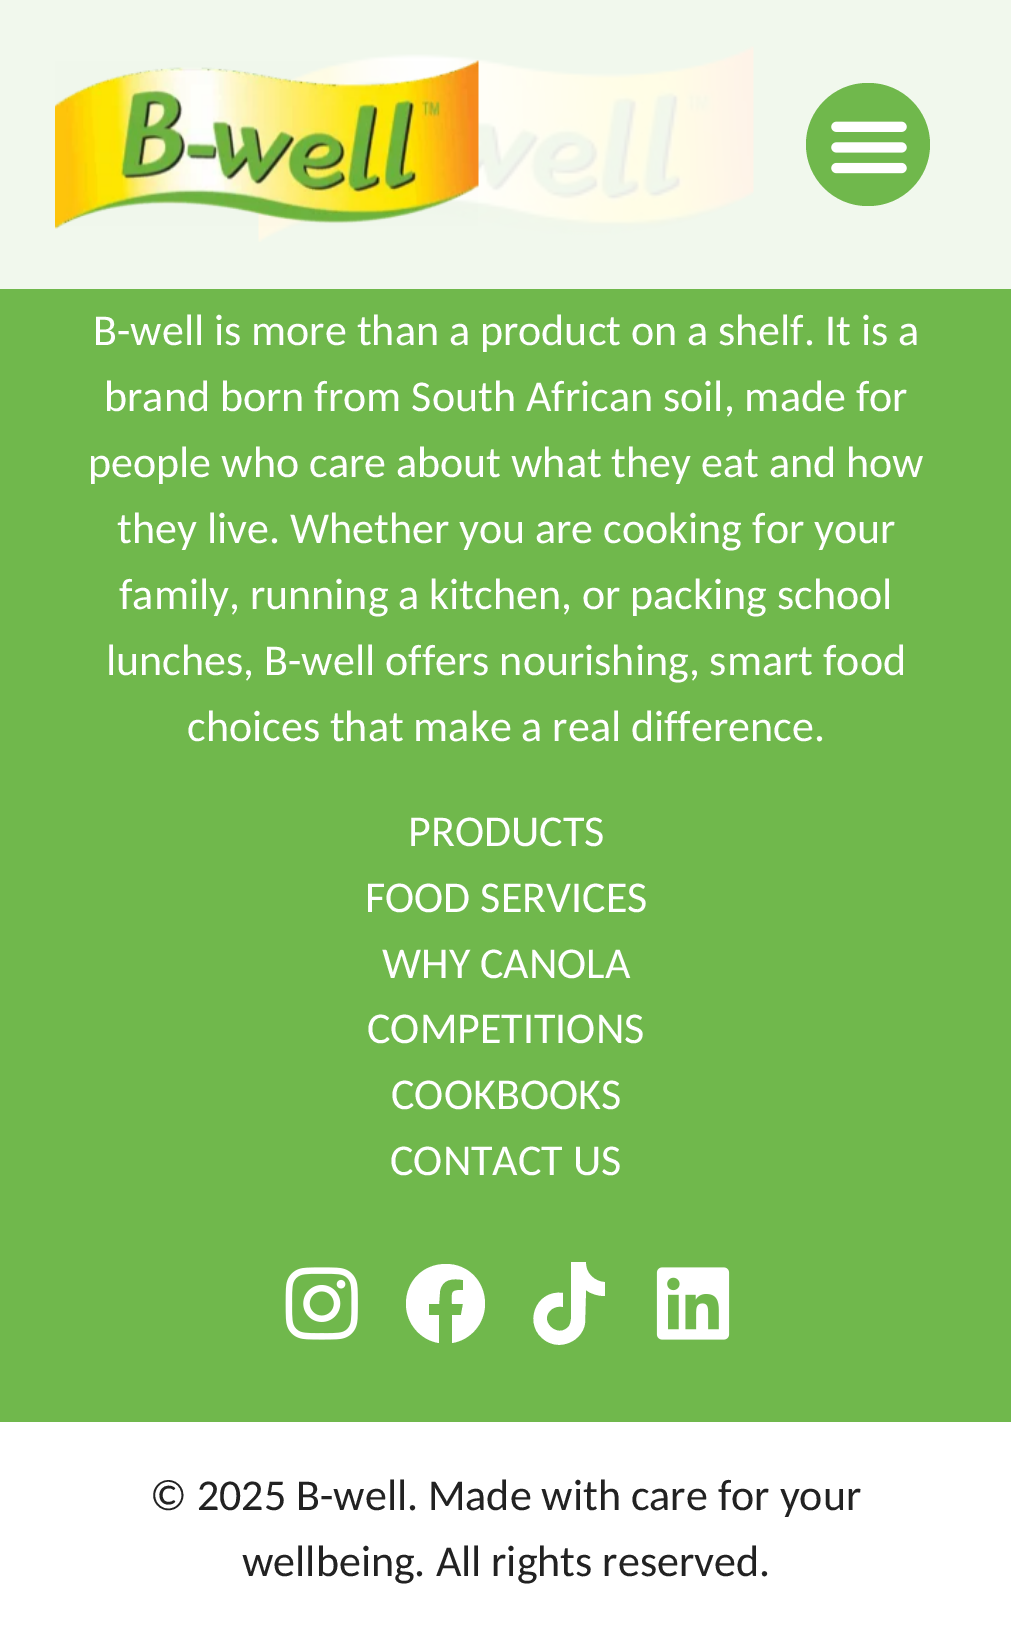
%!PS-Adobe-3.0
%%BoundingBox: 0 0 1011 1634
%%LanguageLevel: 3
%%Pages: 1
%%EndComments
%%BeginProlog
/rrect { 5 dict begin { /r /h /w /y /x } { exch def } forall
  x r add y moveto x w add y 2 copy h add r arct x w add y h add x 1 index r arct
  x y h add x y r arct x y 2 copy exch w add exch r arct closepath end } def
/drawimage { 5 dict begin { /h /w /y /x /name } { exch def } forall
  gsave x y translate w h scale
  w h 8 [w 0 0 h 0 0] name (r) file false 3 colorimage grestore end } def
%%EndProlog
%%BeginSetup
<< /PageSize [1011 1634] >> setpagedevice
%%EndSetup
%%Page: 1 1
0 1634 translate 1 -1 scale
4 setmiterlimit
1 setgray
0 0 1011 1634 rectfill
0.945 0.973 0.929 setrgbcolor
0 0 1011 289 rectfill
(images/3.raw) 258 46 496 196 drawimage
(images/1.raw) 55 60 424 169 drawimage
0.439 0.722 0.298 setrgbcolor
806 83 124 123 61.5 rrect fill
(images/2.raw) 831 121 76 53 drawimage
0 289 1011 1133 rectfill
(images/4.raw) 285 1267 73 73 drawimage
1 setgray
newpath 485 1304 moveto 485 1281 468 1264 446 1264 curveto 423 1264 406 1281 406 1304 curveto 406 1323 420 1340 439 1343 curveto 439 1315 lineto 429 1315 lineto 429 1304 lineto 439 1304 lineto 440 1291 lineto 442 1279 453 1278 463 1280 curveto 463 1290 lineto 450 1290 452 1292 452 1304 curveto 463 1304 lineto 461 1315 lineto 452 1315 lineto 452 1343 lineto 471 1340 485 1323 485 1304 curveto closepath fill
newpath 605 1296 moveto 598 1296 591 1294 586 1290 curveto 585 1323 lineto 584 1333 575 1342 565 1344 curveto 558 1346 551 1344 546 1341 curveto 522 1326 535 1289 563 1293 curveto 563 1307 lineto 559 1306 555 1307 552 1309 curveto 537 1320 558 1340 569 1326 curveto 572 1321 571 1314 571 1309 curveto 571 1262 lineto 586 1262 lineto 585 1273 595 1282 605 1282 curveto closepath fill
(images/5.raw) 656 1267 74 73 drawimage
/Carlito-Regular [44 0 0 -44 0 0] selectfont
93 345 moveto (B-well is more than a product on a shelf. It is a) show
104 411 moveto (brand born from South African soil, made for) show
88 477 moveto (people who care about what they eat and how) show
117 543 moveto (they live. Whether you are cooking for your) show
119 609 moveto (family, running a kitchen, or packing school) show
106 675 moveto (lunches, B-well offers nourishing, smart food) show
187 741 moveto (choices that make a real difference.) show
408 846 moveto (PRODUCTS) show
365 912 moveto (FOOD SERVICES) show
382 978 moveto (WHY CANOLA) show
367 1043 moveto (COMPETITIONS) show
391 1109 moveto (COOKBOOKS) show
390 1175 moveto (CONTACT US) show
0.133 setgray
150 1510 moveto (© 2025 B-well. Made with care for your) show
242 1576 moveto (wellbeing. All rights reserved.) show
showpage
%%EOF
